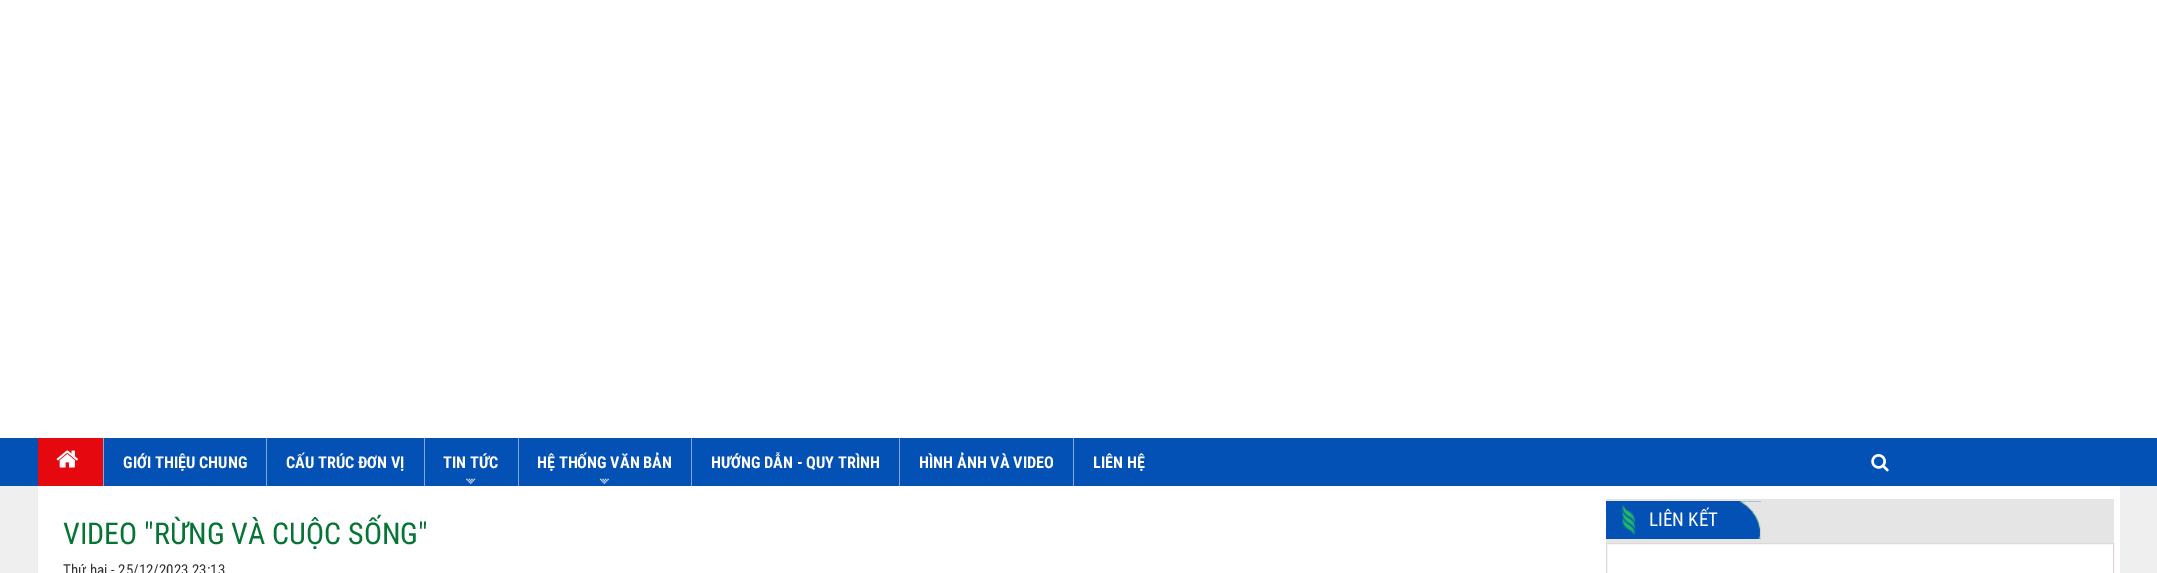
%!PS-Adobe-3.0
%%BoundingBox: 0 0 2157 573
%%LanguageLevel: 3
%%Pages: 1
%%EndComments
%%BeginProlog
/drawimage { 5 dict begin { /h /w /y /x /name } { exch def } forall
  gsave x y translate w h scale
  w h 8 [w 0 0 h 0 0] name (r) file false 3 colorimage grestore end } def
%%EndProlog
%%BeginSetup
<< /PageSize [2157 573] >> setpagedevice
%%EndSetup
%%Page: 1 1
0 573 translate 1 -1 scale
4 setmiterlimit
1 setgray
0 0 2157 573 rectfill
0.016 0.318 0.71 setrgbcolor
0 438 2157 48 rectfill
0.898 0.031 0.059 setrgbcolor
38 438 65 48 rectfill
(images/1.raw) 56 450 22 18 drawimage
0.51 0.659 0.855 setrgbcolor
103 438 1 48 rectfill
266 438 1 48 rectfill
424 438 1 48 rectfill
(images/2.raw) 466 478 10 6 drawimage
518 438 1 48 rectfill
(images/3.raw) 599 478 10 6 drawimage
691 438 1 48 rectfill
899 438 1 48 rectfill
1073 438 1 48 rectfill
(images/4.raw) 1871 454 18 18 drawimage
0.937 setgray
0 486 2157 87 rectfill
1 setgray
38 486 2082 87 rectfill
0.898 setgray
1606 499 508 44 rectfill
0.016 0.318 0.71 setrgbcolor
1606 501 155 38 rectfill
(images/5.raw) 1622 505 14 29 drawimage
(images/6.raw) 1740 501 21 38 drawimage
0.878 0.847 0.847 setrgbcolor
1606.5 543.5 507 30 rectstroke
/RobotoCondensed-Bold [16.25 0 0 -16.25 0 0] selectfont
1 setgray
123 468 moveto (GIỚI THIỆU CHUNG) show
286 468 moveto (CẤU TRÚC ĐƠN VỊ) show
443 468 moveto (TIN TỨC) show
537 468 moveto (HỆ THỐNG VĂN BẢN) show
711 468 moveto (HƯỚNG DẪN - QUY TRÌNH) show
919 468 moveto (HÌNH ẢNH VÀ VIDEO) show
1093 468 moveto (LIÊN HỆ) show
/RobotoCondensed-Regular [30 0 0 -30 0 0] selectfont
0.02 0.455 0.208 setrgbcolor
63 544 moveto (VIDEO "RỪNG VÀ CUỘC SỐNG") show
/RobotoCondensed-Regular [15 0 0 -15 0 0] selectfont
0.2 setgray
63 575 moveto (Thứ hai - 25/12/2023 23:13) show
/RobotoCondensed-Regular [19 0 0 -19 0 0] selectfont
1 setgray
1649 526 moveto (LIÊN KẾT) show
showpage
%%EOF
